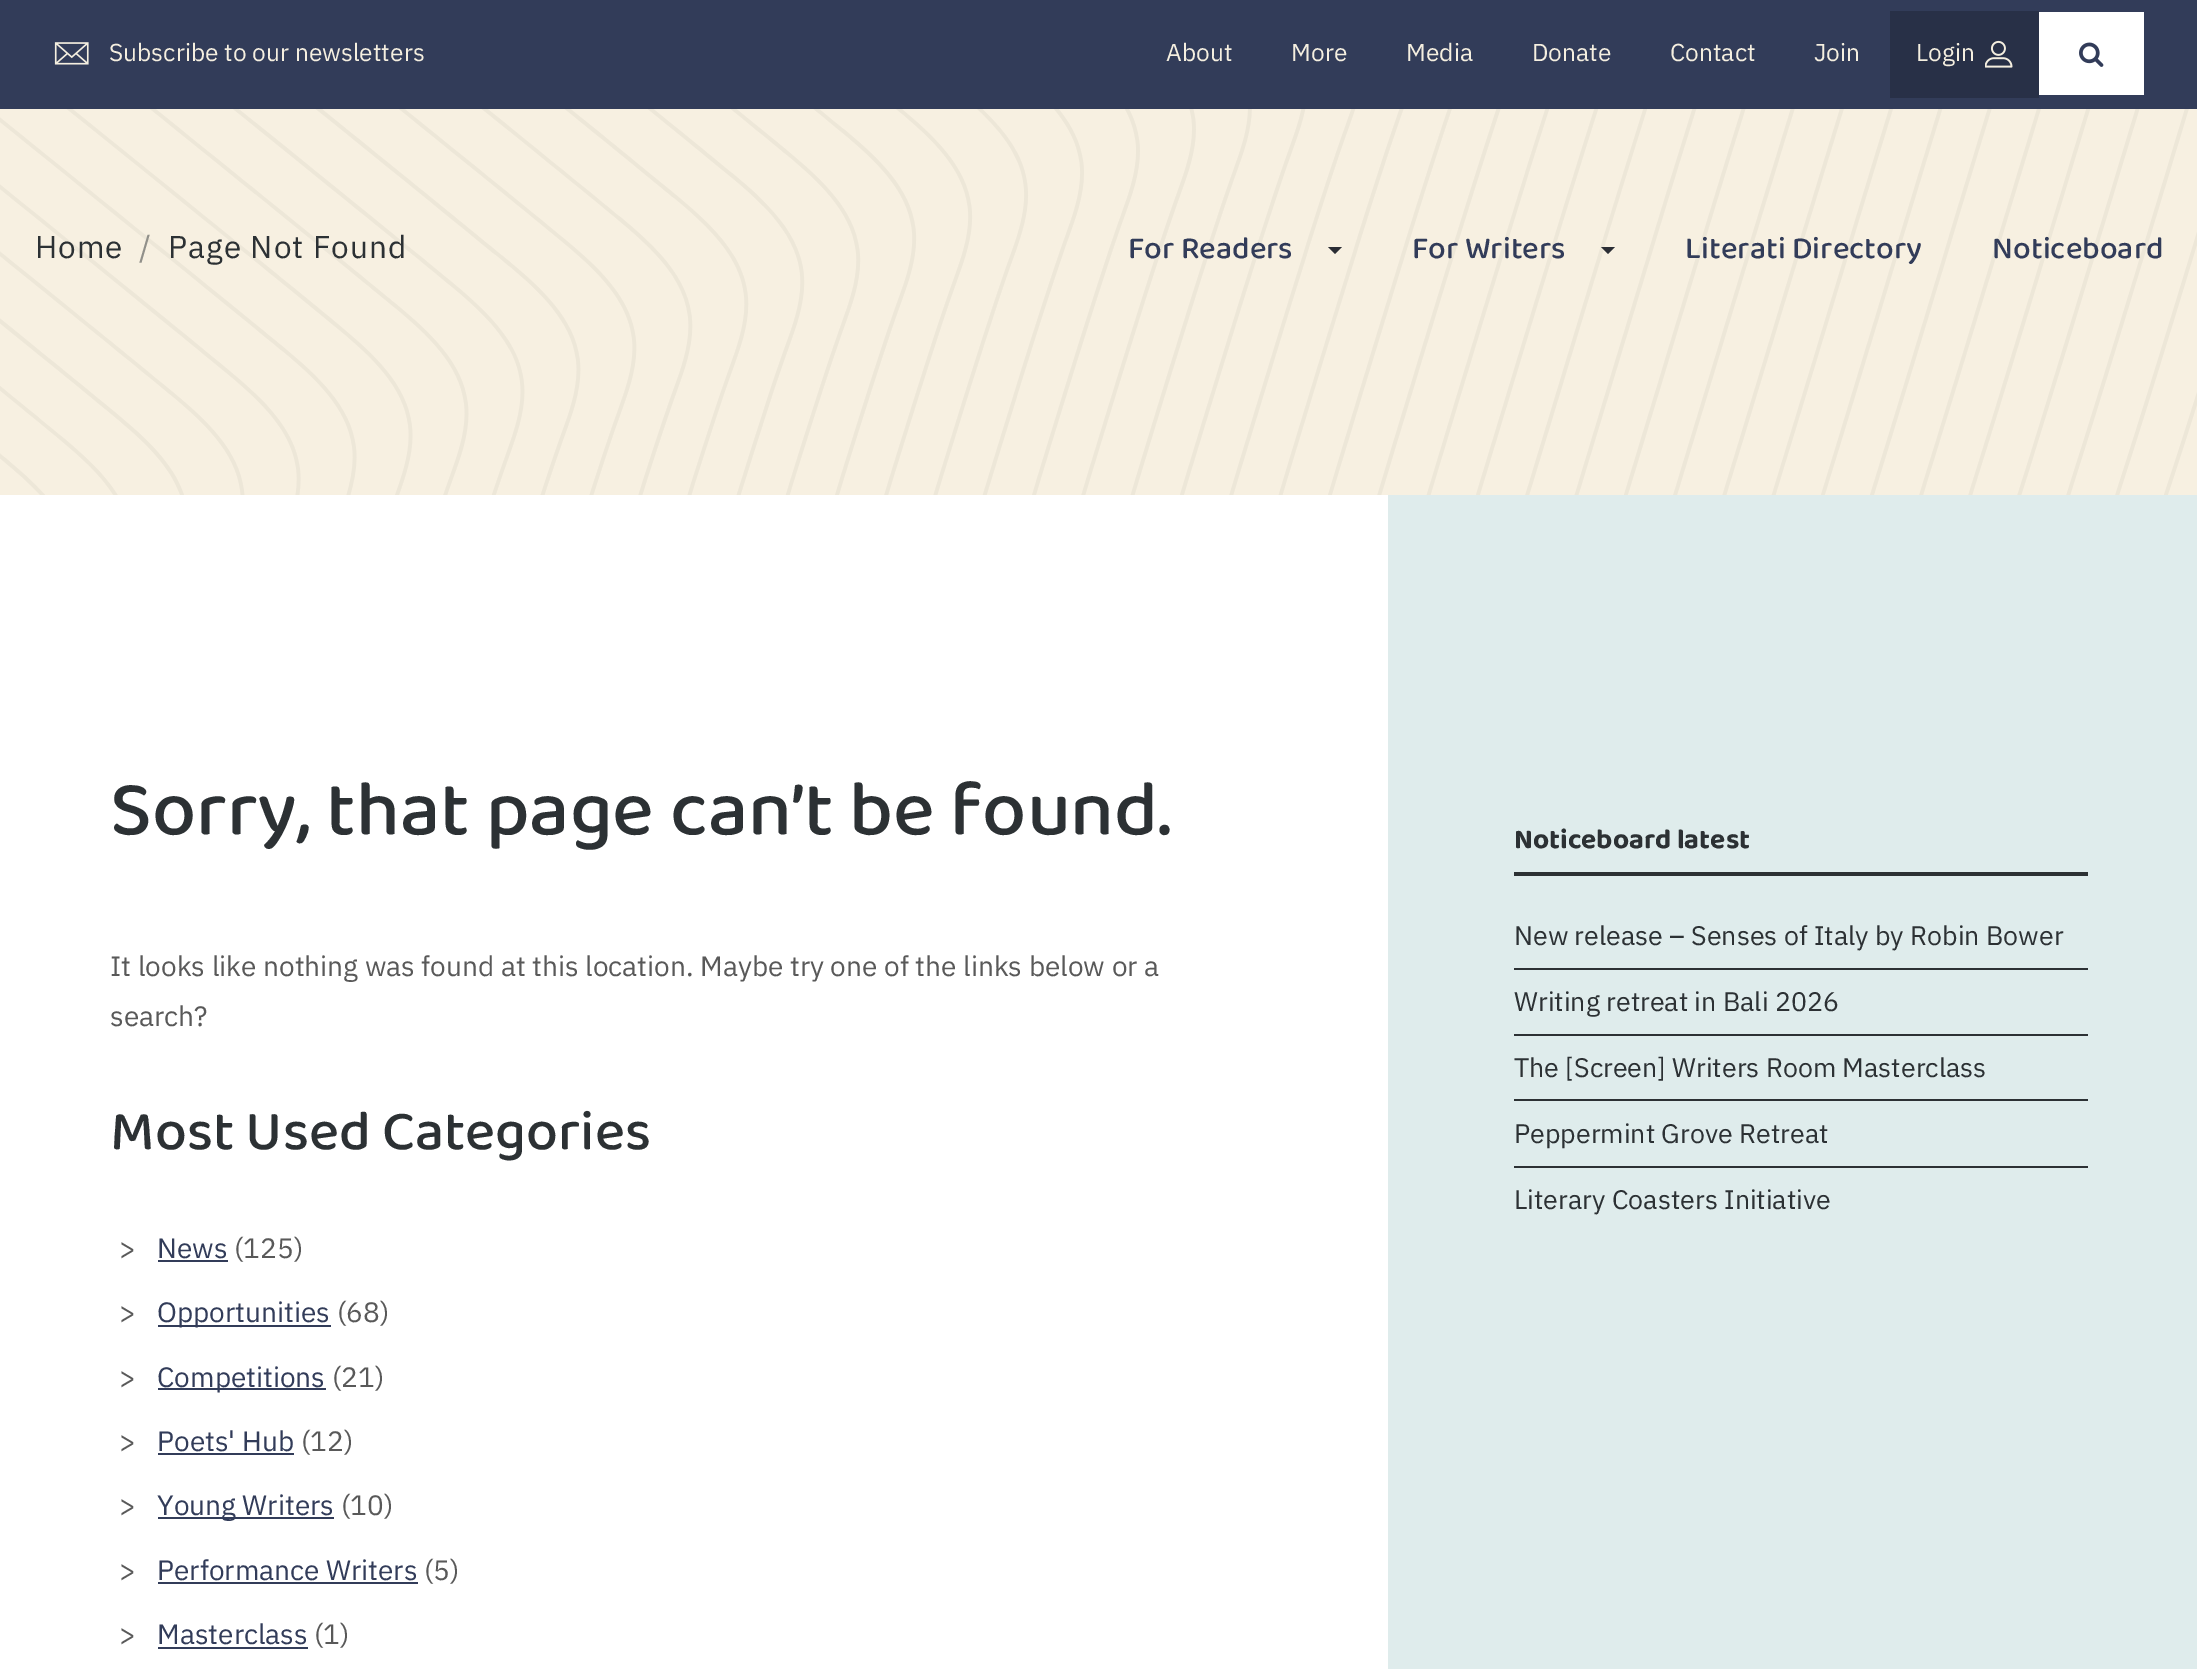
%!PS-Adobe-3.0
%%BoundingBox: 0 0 2197 1669
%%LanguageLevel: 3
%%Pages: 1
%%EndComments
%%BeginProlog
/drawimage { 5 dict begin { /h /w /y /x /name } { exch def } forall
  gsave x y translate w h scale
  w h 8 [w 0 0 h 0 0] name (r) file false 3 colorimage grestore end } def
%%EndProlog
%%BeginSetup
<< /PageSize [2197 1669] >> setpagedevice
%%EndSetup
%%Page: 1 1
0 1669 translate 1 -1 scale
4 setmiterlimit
1 setgray
0 0 2197 1669 rectfill
0.196 0.235 0.349 setrgbcolor
0 0 2197 109 rectfill
(images/1.raw) 54 42 35 23 drawimage
0.157 0.188 0.278 setrgbcolor
1890 11 149 87 rectfill
(images/2.raw) 1985 40 28 28 drawimage
1 setgray
2039 12 105 83 rectfill
(images/3.raw) 2079 42 25 25 drawimage
0.969 0.941 0.882 setrgbcolor
0 109 2197 386 rectfill
(images/4.raw) 0 109 2197 386 drawimage
0.165 0.176 0.204 setrgbcolor
newpath 1328 247 moveto 1342 247 lineto 1335 254 lineto closepath fill
newpath 1601 247 moveto 1615 247 lineto 1608 254 lineto closepath fill
0.875 0.925 0.925 setrgbcolor
1388 495 809 1174 rectfill
0.196 0.235 0.349 setrgbcolor
158 1260 70 2 rectfill
158 1325 173 2 rectfill
158 1388 168 2 rectfill
158 1453 136 2 rectfill
158 1517 176 2 rectfill
158 1582 260 2 rectfill
158 1647 150 2 rectfill
0.173 0.192 0.204 setrgbcolor
1514 872 574 4 rectfill
1514 968 574 2 rectfill
1514 1034 574 2 rectfill
1514 1099 574 2 rectfill
1514 1166 574 2 rectfill
/IBMPlexSans-Regular [24.5 0 0 -24.5 0 0] selectfont
0.961 0.937 0.878 setrgbcolor
109 61 moveto (Subscribe to our newsletters) show
1166 61 moveto (About) show
1291 61 moveto (More) show
1406 61 moveto (Media) show
1532 61 moveto (Donate) show
1670 61 moveto (Contact) show
1814 61 moveto (Join) show
1916 61 moveto (Login) show
/Baloo2-Medium [31.5 0 0 -31.5 0 0] selectfont
0.196 0.235 0.349 setrgbcolor
1128 258 moveto (For Readers) show
1412 258 moveto (For Writers) show
1685 258 moveto (Literati Directory) show
1992 258 moveto (Noticeboard) show
/IBMPlexSans-Regular [31.5 0 0 -31.5 0 0] selectfont
0.173 0.192 0.204 setrgbcolor
35 258 moveto 1 0 (Home) ashow
0.569 0.565 0.541 setrgbcolor
139 258 moveto 1 0 (/) ashow
0.173 0.192 0.204 setrgbcolor
168 258 moveto 1 0 (Page Not Found) ashow
/Baloo2-Medium [78.75 0 0 -78.75 0 0] selectfont
110 834 moveto (Sorry, that page can’t be found.) show
/IBMPlexSans-Regular [28 0 0 -28 0 0] selectfont
0.349 setgray
110 976 moveto (It looks like nothing was found at this location. Maybe try one of the links below or a) show
110 1026 moveto (search?) show
/Baloo2-Medium [56.9 0 0 -56.9 0 0] selectfont
0.173 0.192 0.204 setrgbcolor
110 1149 moveto (Most Used Categories) show
/IBMPlexSans-Regular [28 0 0 -28 0 0] selectfont
0.349 setgray
119 1258 moveto (>) show
0.196 0.235 0.349 setrgbcolor
157 1258 moveto (News) show
0.349 setgray
234 1258 moveto (\(125\)) show
119 1322 moveto (>) show
0.196 0.235 0.349 setrgbcolor
157 1322 moveto (Opportunities) show
0.349 setgray
337 1322 moveto (\(68\)) show
119 1387 moveto (>) show
0.196 0.235 0.349 setrgbcolor
157 1387 moveto (Competitions) show
0.349 setgray
332 1387 moveto (\(21\)) show
119 1451 moveto (>) show
0.196 0.235 0.349 setrgbcolor
157 1451 moveto (Poets' Hub) show
0.349 setgray
301 1451 moveto (\(12\)) show
119 1515 moveto (>) show
0.196 0.235 0.349 setrgbcolor
157 1515 moveto (Young Writers) show
0.349 setgray
341 1515 moveto (\(10\)) show
119 1580 moveto (>) show
0.196 0.235 0.349 setrgbcolor
157 1580 moveto (Performance Writers) show
0.349 setgray
424 1580 moveto (\(5\)) show
119 1644 moveto (>) show
0.196 0.235 0.349 setrgbcolor
157 1644 moveto (Masterclass) show
0.349 setgray
314 1644 moveto (\(1\)) show
/Baloo2-Bold [28 0 0 -28 0 0] selectfont
0.173 0.192 0.204 setrgbcolor
1514 848 moveto (Noticeboard latest) show
/IBMPlexSans-Regular [26.75 0 0 -26.75 0 0] selectfont
1514 945 moveto (New release – Senses of Italy by Robin Bower) show
1514 1011 moveto (Writing retreat in Bali 2026) show
1514 1077 moveto (The [Screen] Writers Room Masterclass) show
1514 1143 moveto (Peppermint Grove Retreat) show
1514 1209 moveto (Literary Coasters Initiative) show
showpage
%%EOF
